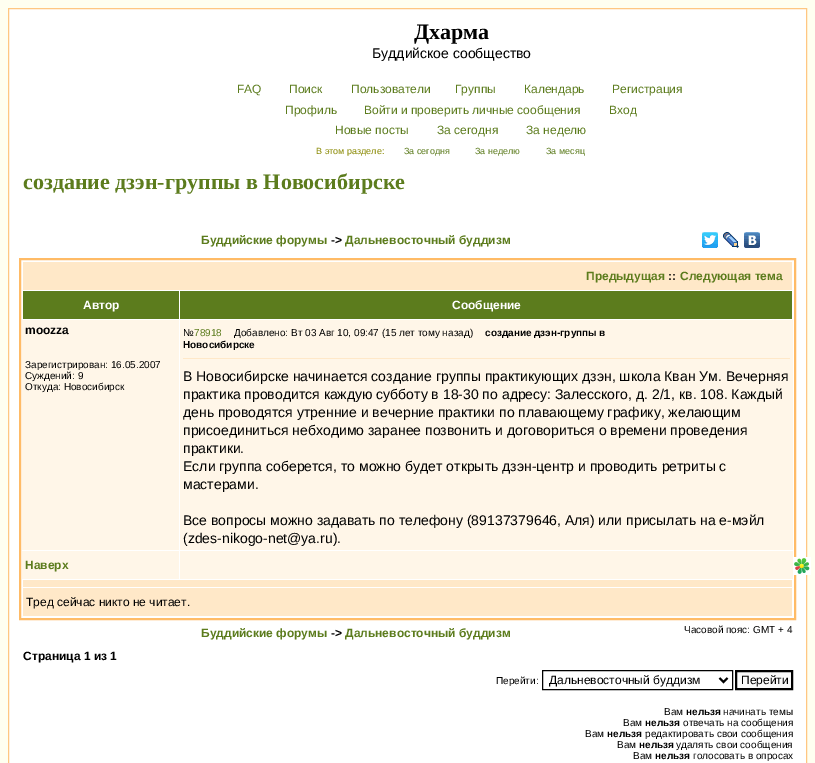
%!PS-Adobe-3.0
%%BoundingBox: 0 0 815 763
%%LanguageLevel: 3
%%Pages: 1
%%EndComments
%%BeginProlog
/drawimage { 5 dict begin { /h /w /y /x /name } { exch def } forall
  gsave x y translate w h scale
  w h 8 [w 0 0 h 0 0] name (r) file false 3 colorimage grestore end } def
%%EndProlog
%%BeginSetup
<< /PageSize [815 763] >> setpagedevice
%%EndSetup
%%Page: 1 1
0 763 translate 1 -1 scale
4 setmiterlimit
1 1 0.941 setrgbcolor
0 0 815 763 rectfill
1 setgray
newpath 8.5 8.5 moveto 806.5 8.5 lineto 806.5 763.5 lineto 8.5 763.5 lineto closepath gsave fill grestore
1 0.78 0.51 setrgbcolor
stroke
(images/1.raw) 702 232 16 16 drawimage
(images/2.raw) 723 232 16 16 drawimage
(images/3.raw) 744 232 16 16 drawimage
1 0.733 0.4 setrgbcolor
2 setlinewidth
20 259 775 360 rectstroke
1 0.91 0.784 setrgbcolor
23 262 769 28 rectfill
0.361 0.486 0.114 setrgbcolor
23 291 156 28 rectfill
180 291 612 28 rectfill
1 0.965 0.91 setrgbcolor
22 320 157 230 rectfill
180 320 613 230 rectfill
1 0.91 0.784 setrgbcolor
183 358 607 1 rectfill
1 0.965 0.91 setrgbcolor
22 551 157 28 rectfill
180 551 613 28 rectfill
(images/4.raw) 794 557 17 18 drawimage
1 0.91 0.784 setrgbcolor
23 580 769 7 rectfill
23 588 769 28 rectfill
0 setgray
1 setlinewidth
542.5 670.5 190 19 rectstroke
2 setlinewidth
newpath 719.5 678 moveto 723.5 682 lineto 727.5 678 lineto stroke
0.98 setgray
newpath 736 671 moveto 792 671 lineto 792 689 lineto 736 689 lineto closepath gsave fill grestore
0 setgray
stroke
/LiberationSerif-Bold [22 0 0 -22 0 0] selectfont
414 39 moveto (Дхарма) show
/LiberationSans-Regular [14 0 0 -14 0 0] selectfont
372 58 moveto (Буддийское сообщество) show
/LiberationSans-Regular [12 0 0 -12 0 0] selectfont
0.361 0.486 0.114 setrgbcolor
237 93 moveto (FAQ) show
289 93 moveto (Поиск) show
351 93 moveto (Пользователи) show
455 93 moveto (Группы) show
524 93 moveto (Календарь) show
612 93 moveto (Peгиcтрaция) show
285 114 moveto (Профиль) show
364 114 moveto (Войти и проверить личные сообщения) show
609 114 moveto (Вхoд) show
335 134 moveto (Новые посты) show
437 134 moveto (За сегодня) show
526 134 moveto (За неделю) show
/LiberationSans-Regular [9 0 0 -9 0 0] selectfont
0.533 0.533 0 setrgbcolor
316 154 moveto (В этом разделе:) show
0.361 0.486 0.114 setrgbcolor
404 154 moveto (За сегодня) show
475 154 moveto (За неделю) show
546 154 moveto (За месяц) show
/LiberationSerif-Bold [22 0 0 -22 0 0] selectfont
23 189 moveto (создание дзэн-группы в Новосибирске) show
/LiberationSans-Bold [12 0 0 -12 0 0] selectfont
201 244 moveto (Буддийские форумы) show
0 setgray
331 244 moveto (->) show
0.361 0.486 0.114 setrgbcolor
345 244 moveto (Дальневосточный буддизм) show
586 280 moveto (Предыдущая) show
0 setgray
668 280 moveto (::) show
0.361 0.486 0.114 setrgbcolor
680 280 moveto (Следующая тема) show
1 setgray
83 309 moveto (Автор) show
452 309 moveto (Сообщение) show
0 setgray
25 334 moveto (moozza) show
/LiberationSans-Regular [10 0 0 -10 0 0] selectfont
25 368 moveto (Зарегистрирован: 16.05.2007) show
25 379 moveto (Суждений: 9) show
25 390 moveto (Откуда: Новосибирск) show
183 336 moveto (№) show
0.361 0.486 0.114 setrgbcolor
194 336 moveto (78918) show
0 setgray
234 336 moveto (Добавлено: Вт 03 Авг 10, 09:47 \(15 лет тому назад\)) show
/LiberationSans-Bold [10 0 0 -10 0 0] selectfont
485 336 moveto (создание дзэн-группы в) show
183 348 moveto (Новосибирске) show
/LiberationSans-Regular [14 0 0 -14 0 0] selectfont
183 381 moveto (В Новосибирске начинается создание группы практикующих дзэн, школа Кван Ум. Вечерняя) show
183 399 moveto (практика проводится каждую субботу в 18-30 по адресу: Залесского, д. 2/1, кв. 108. Каждый) show
183 417 moveto (день проводятся утренние и вечерние практики по плавающему графику, желающим) show
183 435 moveto (присоединиться небходимо заранее позвонить и договориться о времени проведения) show
183 453 moveto (практики.) show
183 471 moveto (Если группа соберется, то можно будет открыть дзэн-центр и проводить ретриты с) show
183 489 moveto (мастерами.) show
183 525 moveto (Все вопросы можно задавать по телефону \(89137379646, Аля\) или присылать на е-мэйл) show
183 543 moveto (\(zdes-nikogo-net@ya.ru\).) show
/LiberationSans-Bold [12 0 0 -12 0 0] selectfont
0.361 0.486 0.114 setrgbcolor
25 569 moveto (Наверх) show
/LiberationSans-Regular [12 0 0 -12 0 0] selectfont
0 setgray
26 606 moveto (Тред сейчас никто не читает.) show
/LiberationSans-Bold [12 0 0 -12 0 0] selectfont
0.361 0.486 0.114 setrgbcolor
201 637 moveto (Буддийские форумы) show
0 setgray
331 637 moveto (->) show
0.361 0.486 0.114 setrgbcolor
345 637 moveto (Дальневосточный буддизм) show
/LiberationSans-Regular [10 0 0 -10 0 0] selectfont
0 setgray
684 633 moveto (Часовой пояс: GMT + 4) show
/LiberationSans-Bold [12 0 0 -12 0 0] selectfont
23 660 moveto (Страница 1 из 1) show
/LiberationSans-Regular [10 0 0 -10 0 0] selectfont
496 684 moveto (Перейти:) show
gsave
549 672 165 16 rectclip
/LiberationSans-Regular [12 0 0 -12 0 0] selectfont
549 684 moveto (Дальневосточный буддизм) show
grestore
/LiberationSans-Regular [12 0 0 -12 0 0] selectfont
741 684 moveto (Перейти) show
/LiberationSans-Regular [10 0 0 -10 0 0] selectfont
664 715 moveto (Вам) show
/LiberationSans-Bold [10 0 0 -10 0 0] selectfont
686 715 moveto (нельзя) show
/LiberationSans-Regular [10 0 0 -10 0 0] selectfont
723 715 moveto (начинать темы) show
623 726 moveto (Вам) show
/LiberationSans-Bold [10 0 0 -10 0 0] selectfont
645 726 moveto (нельзя) show
/LiberationSans-Regular [10 0 0 -10 0 0] selectfont
683 726 moveto (отвечать на сообщения) show
585 737 moveto (Вам) show
/LiberationSans-Bold [10 0 0 -10 0 0] selectfont
607 737 moveto (нельзя) show
/LiberationSans-Regular [10 0 0 -10 0 0] selectfont
645 737 moveto (редактировать свои сообщения) show
617 748 moveto (Вам) show
/LiberationSans-Bold [10 0 0 -10 0 0] selectfont
639 748 moveto (нельзя) show
/LiberationSans-Regular [10 0 0 -10 0 0] selectfont
676 748 moveto (удалять свои сообщения) show
633 759 moveto (Вам) show
/LiberationSans-Bold [10 0 0 -10 0 0] selectfont
655 759 moveto (нельзя) show
/LiberationSans-Regular [10 0 0 -10 0 0] selectfont
693 759 moveto (голосовать в опросах) show
showpage
%%EOF
